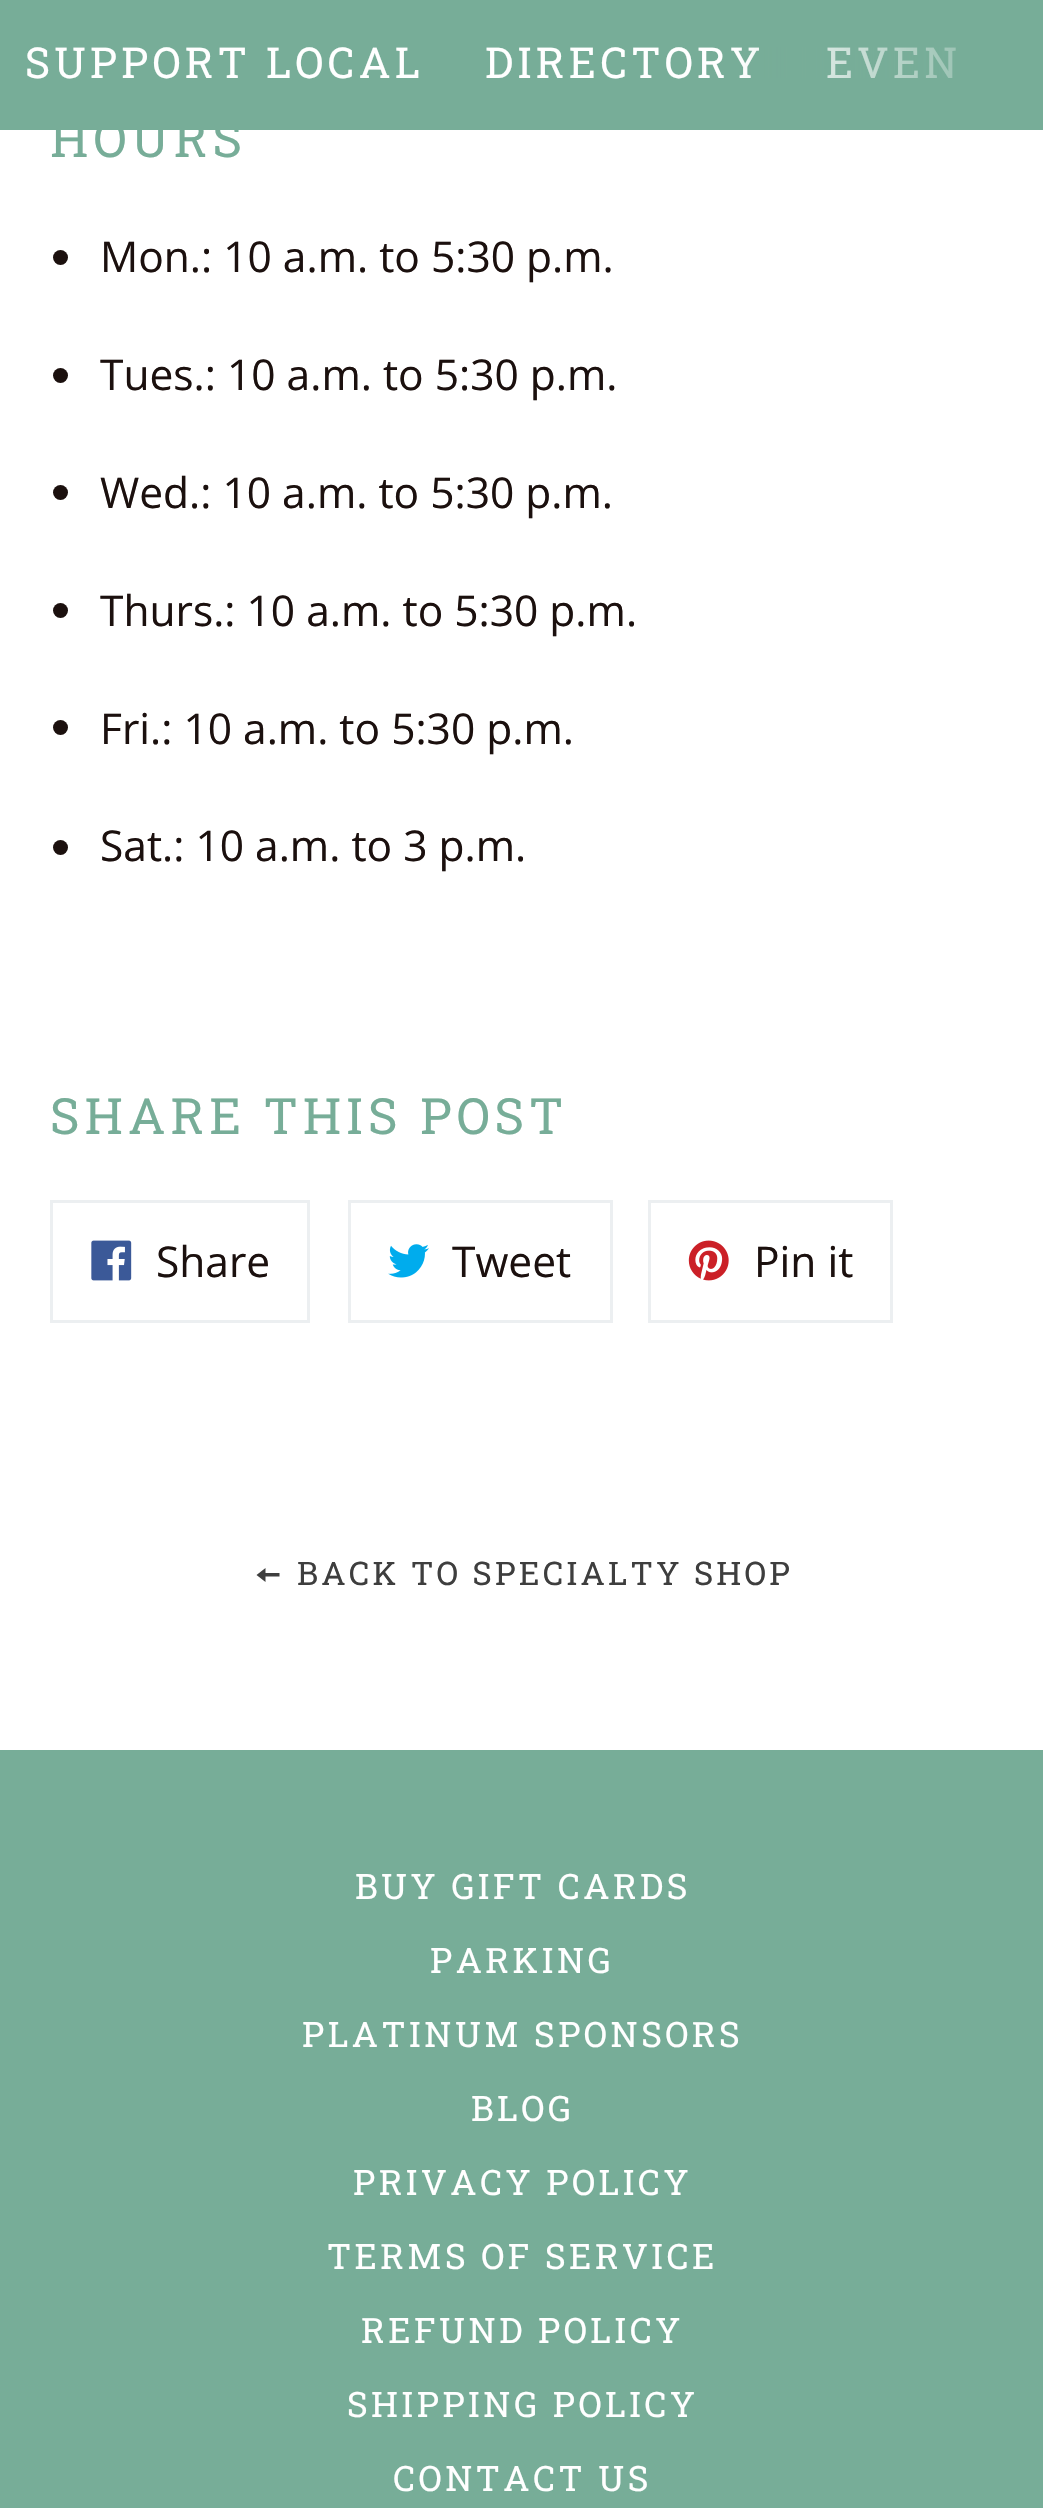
#include "include/core/SkBlurTypes.h"
#include "include/core/SkCanvas.h"
#include "include/core/SkData.h"
#include "include/core/SkFont.h"
#include "include/core/SkFontMgr.h"
#include "include/core/SkImage.h"
#include "include/core/SkMaskFilter.h"
#include "include/core/SkPaint.h"
#include "include/core/SkPathBuilder.h"
#include "include/core/SkTextBlob.h"
#include "include/effects/SkDashPathEffect.h"
#include "include/effects/SkGradientShader.h"
#include "include/utils/SkParsePath.h"

extern sk_sp<SkFontMgr> fontMgr;

void draw(SkCanvas* canvas) {
  SkPaint p;
  p.setAntiAlias(true);
  auto spacedText = [&](const char* s, float x, float y, const SkFont& font, const SkPaint& ink, float letter, float word) {
    std::vector<SkGlyphID> glyphs(font.countText(s, strlen(s), SkTextEncoding::kUTF8));
    std::vector<float> xs(glyphs.size());
    font.textToGlyphs(s, strlen(s), SkTextEncoding::kUTF8, glyphs);
    font.getXPos(glyphs, xs, x);
    float extra = 0;
    for (size_t i = 0; i < glyphs.size(); i++) {
      xs[i] += extra;
      extra += letter + word * (glyphs[i] == font.unicharToGlyph(' '));
    }
    canvas->drawTextBlob(SkTextBlob::MakeFromPosHGlyphs(glyphs, xs, y, font), 0, 0, ink);
  };
  canvas->clear(SK_ColorWHITE);
  p.setColor(SkColorSetRGB(119, 173, 152));
  canvas->drawRect(SkRect::MakeLTRB(0, 0, 1043, 130), p);
  p.setColor(SkColorSetRGB(27, 16, 14));
  canvas->drawCircle(60.5f, 257.5f, 7.5f, p);
  canvas->drawCircle(60.5f, 375.5f, 7.5f, p);
  canvas->drawCircle(60.5f, 492.5f, 7.5f, p);
  canvas->drawCircle(60.5f, 610.5f, 7.5f, p);
  canvas->drawCircle(60.5f, 727.5f, 7.5f, p);
  canvas->drawCircle(60.5f, 847.5f, 7.5f, p);
  p.setStyle(SkPaint::kStroke_Style);
  p.setStrokeWidth(3);
  p.setColor(SkColorSetRGB(236, 239, 241));
  canvas->drawRect(SkRect::MakeLTRB(51.5f, 1201.5f, 308.5f, 1321.5f), p);
  canvas->drawImageRect(SkImages::DeferredFromEncodedData(SkData::MakeFromFileName("images/1.png")), SkRect::MakeLTRB(91, 1240, 132, 1281), SkSamplingOptions());
  canvas->drawRect(SkRect::MakeLTRB(349.5f, 1201.5f, 611.5f, 1321.5f), p);
  canvas->drawImageRect(SkImages::DeferredFromEncodedData(SkData::MakeFromFileName("images/2.png")), SkRect::MakeLTRB(388, 1244, 429, 1278), SkSamplingOptions());
  canvas->drawRect(SkRect::MakeLTRB(649.5f, 1201.5f, 891.5f, 1321.5f), p);
  canvas->drawImageRect(SkImages::DeferredFromEncodedData(SkData::MakeFromFileName("images/3.png")), SkRect::MakeLTRB(688, 1240, 729, 1281), SkSamplingOptions());
  p.setStyle(SkPaint::kFill_Style);
  p.setColor(SkColorSetRGB(62, 62, 62));
  canvas->drawPath(SkPathBuilder().moveTo(265.5f, 1573).lineTo(265.5f, 1568).lineTo(256.5f, 1575).lineTo(265.5f, 1582).lineTo(265.5f, 1576.5f).lineTo(279.5f, 1576.5f).lineTo(279.5f, 1573).close().detach(), p);
  p.setColor(SkColorSetRGB(119, 173, 152));
  canvas->drawRect(SkRect::MakeLTRB(0, 1750, 1043, 2508), p);
  SkFont font1(fontMgr->matchFamilyStyle("Roboto Slab", SkFontStyle::Normal()), 42.5f);
  font1.setSubpixel(true);
  p.setColor(SK_ColorWHITE);
  spacedText("SUPPORT LOCAL", 25, 78, font1, p, 4.25f, 0);
  spacedText("DIRECTORY", 485, 78, font1, p, 4.25f, 0);
  spacedText("EVEN", 826, 78, font1, p, 4.25f, 0);
  {
    const SkColor colors[] = {SkColorSetARGB(0, 119, 173, 152), SkColorSetRGB(119, 173, 152)};
    const float stops[] = {0, 1};
    const SkPoint ends[] = {{733, 65}, {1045, 65}};
    p.setShader(SkGradientShader::MakeLinear(ends, colors, stops, 2, SkTileMode::kClamp));
    p.setAlpha(255);
  }
  canvas->drawRect(SkRect::MakeLTRB(740, 47, 956, 78), p);
  SkFont font2(fontMgr->matchFamilyStyle("Roboto Slab", SkFontStyle::Normal()), 50);
  font2.setSubpixel(true);
  p.setShader(nullptr);
  p.setColor(SkColorSetRGB(119, 173, 152));
  spacedText("HOURS", 50, 157, font2, p, 5, 0);
  SkFont font3(fontMgr->matchFamilyStyle("Open Sans", SkFontStyle::Normal()), 42.5f);
  font3.setSubpixel(true);
  p.setColor(SkColorSetRGB(27, 16, 14));
  canvas->drawString("Mon.: 10 a.m. to 5:30 p.m.", 100, 272, font3, p);
  canvas->drawString("Tues.: 10 a.m. to 5:30 p.m.", 100, 390, font3, p);
  canvas->drawString("Wed.: 10 a.m. to 5:30 p.m.", 100, 508, font3, p);
  canvas->drawString("Thurs.: 10 a.m. to 5:30 p.m.", 100, 626, font3, p);
  canvas->drawString("Fri.: 10 a.m. to 5:30 p.m.", 100, 744, font3, p);
  canvas->drawString("Sat.: 10 a.m. to 3 p.m.", 100, 861, font3, p);
  p.setColor(SkColorSetRGB(119, 173, 152));
  spacedText("SHARE THIS POST", 50, 1134, font2, p, 5, 0);
  p.setColor(SkColorSetRGB(27, 16, 14));
  canvas->drawString("Share", 156, 1277, font3, p);
  canvas->drawString("Tweet", 452, 1277, font3, p);
  canvas->drawString("Pin it", 754, 1277, font3, p);
  SkFont font4(fontMgr->matchFamilyStyle("Roboto Slab", SkFontStyle::Normal()), 32.5f);
  font4.setSubpixel(true);
  p.setColor(SkColorSetRGB(62, 62, 62));
  spacedText("BACK TO SPECIALTY SHOP", 297, 1585, font4, p, 3.25f, 0);
  SkFont font5(fontMgr->matchFamilyStyle("Roboto Slab", SkFontStyle::Normal()), 35);
  font5.setSubpixel(true);
  p.setColor(SK_ColorWHITE);
  spacedText("BUY GIFT CARDS", 355, 1899, font5, p, 3.5f, 0);
  spacedText("PARKING", 430, 1973, font5, p, 3.5f, 0);
  spacedText("PLATINUM SPONSORS", 302, 2047, font5, p, 3.5f, 0);
  spacedText("BLOG", 471, 2121, font5, p, 3.5f, 0);
  spacedText("PRIVACY POLICY", 353, 2195, font5, p, 3.5f, 0);
  spacedText("TERMS OF SERVICE", 327, 2269, font5, p, 3.5f, 0);
  spacedText("REFUND POLICY", 361, 2343, font5, p, 3.5f, 0);
  spacedText("SHIPPING POLICY", 347, 2417, font5, p, 3.5f, 0);
  spacedText("CONTACT US", 393, 2491, font5, p, 3.5f, 0);
}
